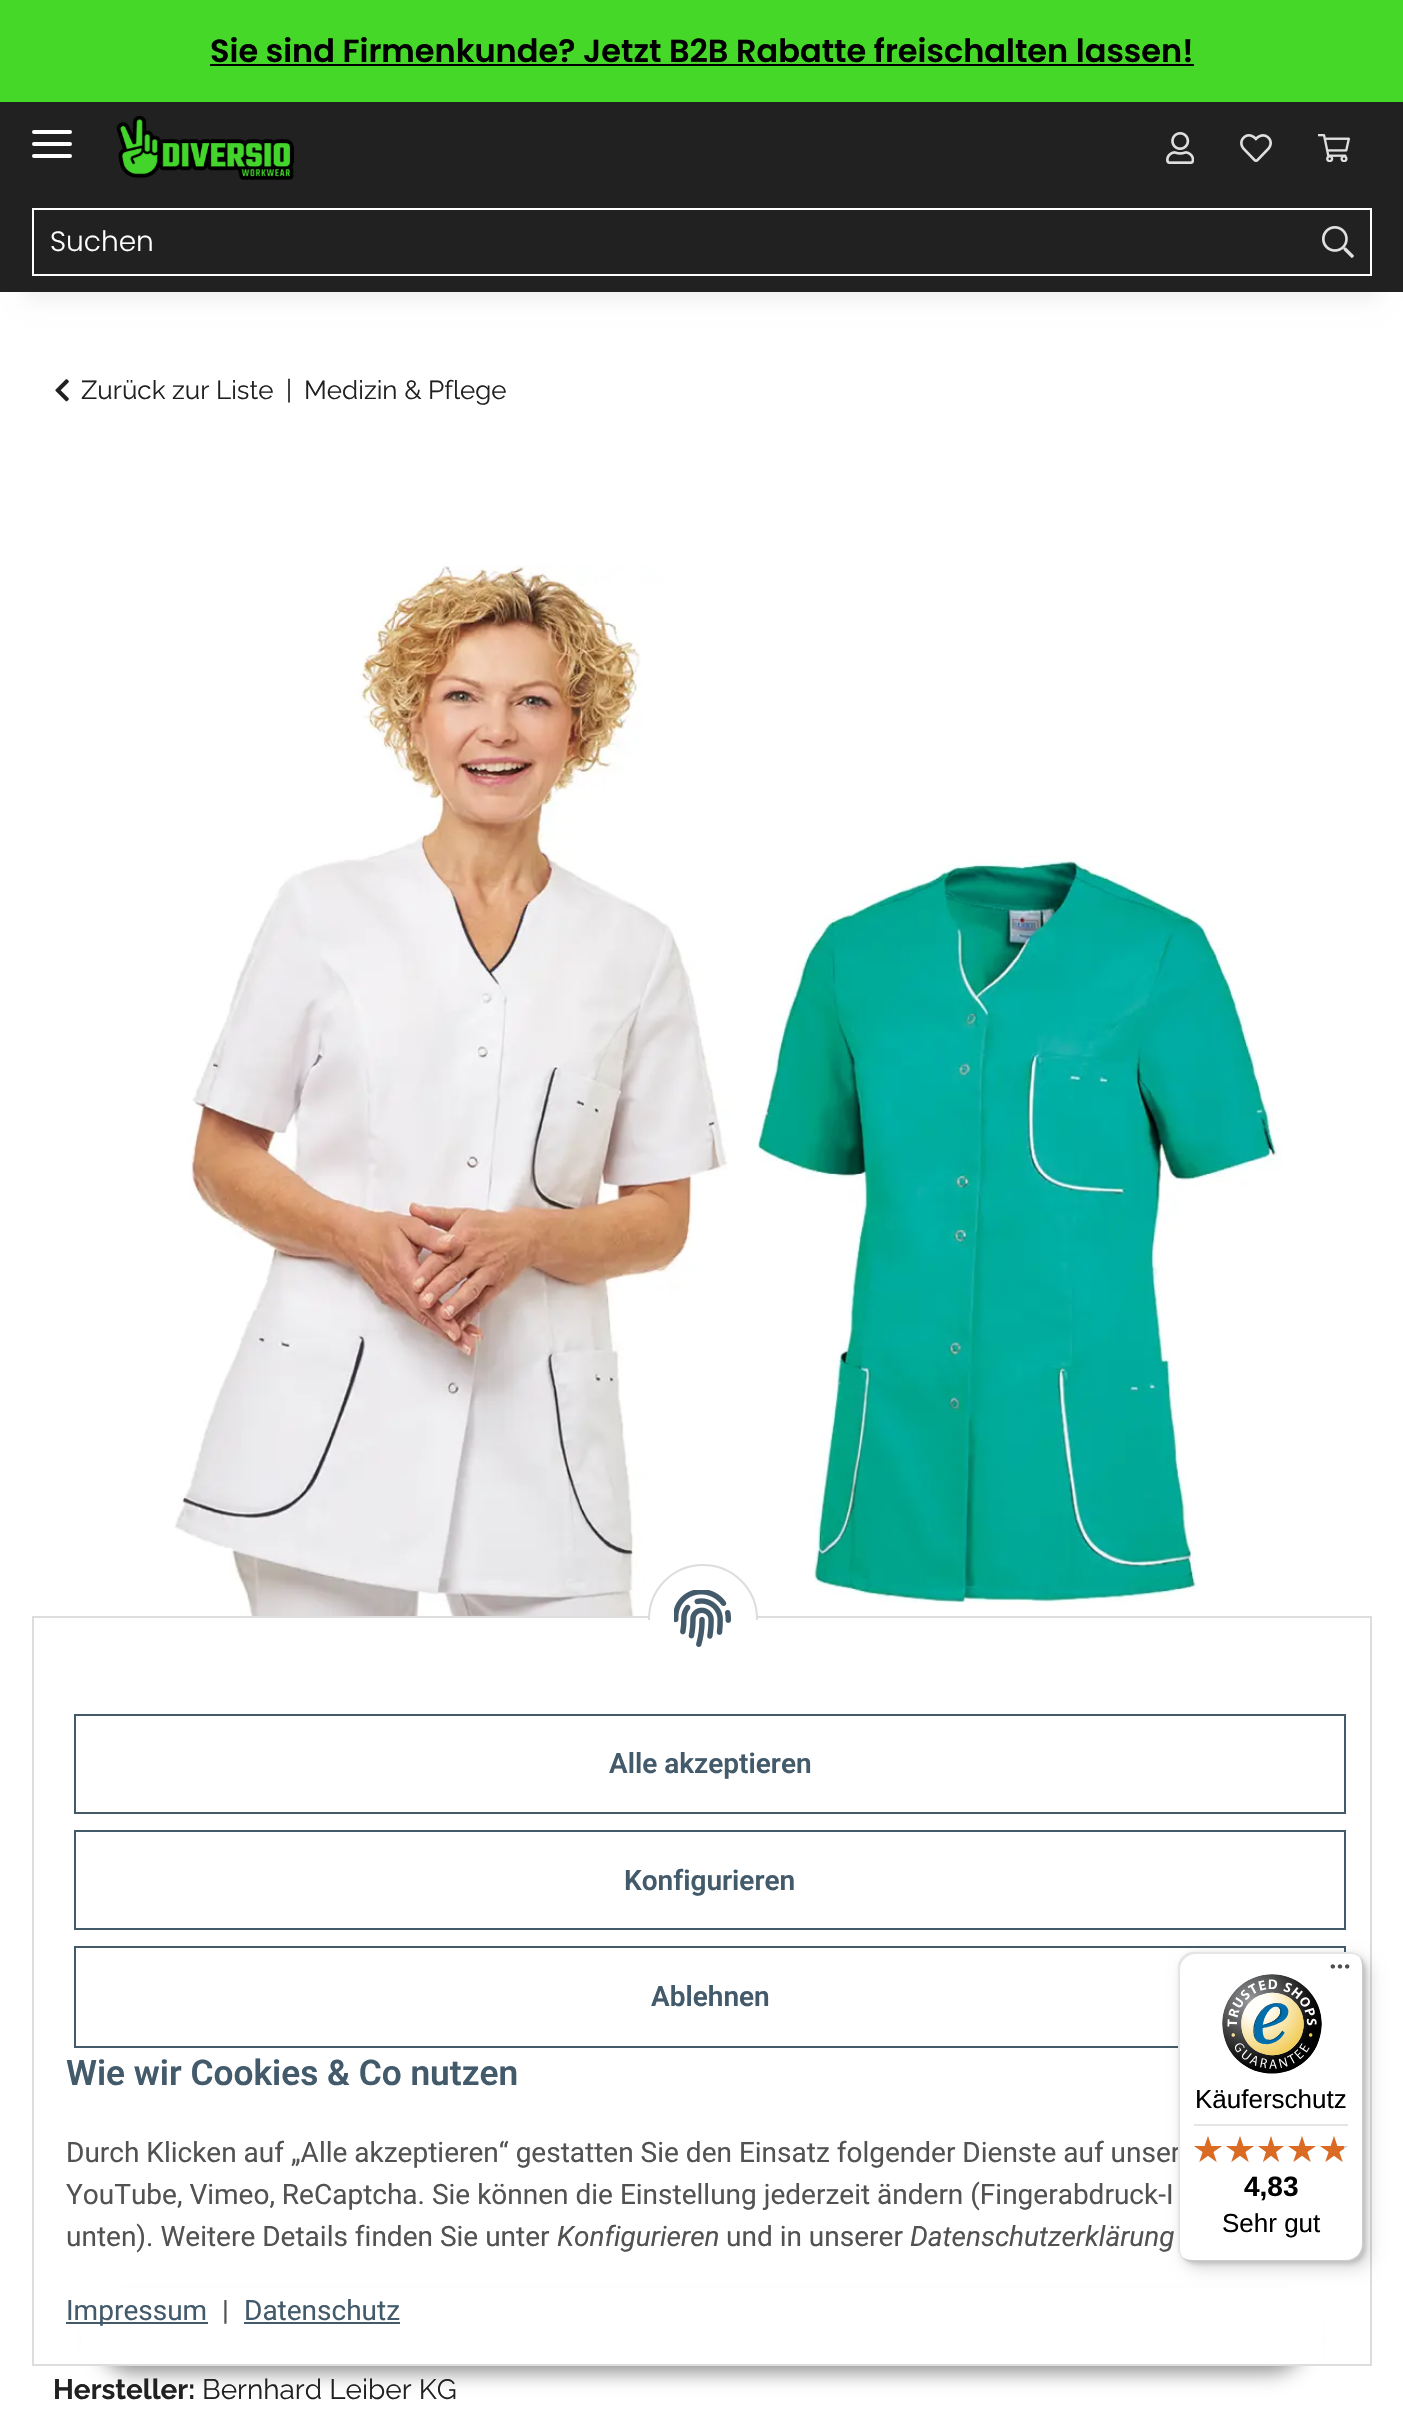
#include "include/core/SkBlurTypes.h"
#include "include/core/SkCanvas.h"
#include "include/core/SkData.h"
#include "include/core/SkFont.h"
#include "include/core/SkFontMgr.h"
#include "include/core/SkImage.h"
#include "include/core/SkMaskFilter.h"
#include "include/core/SkPaint.h"
#include "include/core/SkPathBuilder.h"
#include "include/core/SkTextBlob.h"
#include "include/effects/SkDashPathEffect.h"
#include "include/effects/SkGradientShader.h"
#include "include/utils/SkParsePath.h"

extern sk_sp<SkFontMgr> fontMgr;

void draw(SkCanvas* canvas) {
  SkPaint p;
  p.setAntiAlias(true);
  canvas->clear(SkColorSetRGB(69, 216, 40));
  p.setColor(SK_ColorBLACK);
  canvas->drawRect(SkRect::MakeLTRB(210, 64, 1194, 66), p);
  p.setColor(SK_ColorWHITE);
  canvas->drawRect(SkRect::MakeLTRB(0, 292, 1403, 2429), p);
  p.setColor(SkColorSetARGB(15, 0, 0, 0));
  p.setMaskFilter(SkMaskFilter::MakeBlur(kNormal_SkBlurStyle, 9));
  canvas->drawRect(SkRect::MakeLTRB(24, 158, 1380, 300), p);
  p.setMaskFilter(nullptr);
  p.setColor(SkColorSetRGB(33, 33, 33));
  canvas->drawRect(SkRect::MakeLTRB(0, 102, 1403, 292), p);
  p.setColor(SK_ColorWHITE);
  canvas->drawRoundRect(SkRect::MakeLTRB(32, 142, 72, 146), 2, 2, p);
  canvas->drawRoundRect(SkRect::MakeLTRB(32, 130, 72, 134), 2, 2, p);
  canvas->drawRoundRect(SkRect::MakeLTRB(32, 154, 72, 158), 2, 2, p);
  canvas->drawImageRect(SkImages::DeferredFromEncodedData(SkData::MakeFromFileName("images/1.png")), SkRect::MakeLTRB(116, 116, 294, 180), SkSamplingOptions());
  canvas->drawImageRect(SkImages::DeferredFromEncodedData(SkData::MakeFromFileName("images/2.png")), SkRect::MakeLTRB(1166, 132, 1194, 164), SkSamplingOptions());
  canvas->drawImageRect(SkImages::DeferredFromEncodedData(SkData::MakeFromFileName("images/3.png")), SkRect::MakeLTRB(1240, 134, 1272, 162), SkSamplingOptions());
  canvas->drawImageRect(SkImages::DeferredFromEncodedData(SkData::MakeFromFileName("images/4.png")), SkRect::MakeLTRB(1318, 134, 1350, 162), SkSamplingOptions());
  p.setStyle(SkPaint::kStroke_Style);
  p.setStrokeWidth(2);
  canvas->drawRect(SkRect::MakeLTRB(33, 209, 1307, 275), p);
  p.setStyle(SkPaint::kFill_Style);
  p.setColor(SkColorSetRGB(33, 33, 33));
  canvas->drawRect(SkRect::MakeLTRB(1306, 210, 1308, 274), p);
  p.setColor(SK_ColorWHITE);
  canvas->drawRect(SkRect::MakeLTRB(1306, 208, 1372, 210), p);
  canvas->drawRect(SkRect::MakeLTRB(1370, 208, 1372, 276), p);
  canvas->drawRect(SkRect::MakeLTRB(1306, 274, 1372, 276), p);
  canvas->drawImageRect(SkImages::DeferredFromEncodedData(SkData::MakeFromFileName("images/5.png")), SkRect::MakeLTRB(1322, 226, 1354, 258), SkSamplingOptions());
  canvas->drawImageRect(SkImages::DeferredFromEncodedData(SkData::MakeFromFileName("images/6.png")), SkRect::MakeLTRB(55, 379, 69, 402), SkSamplingOptions());
  canvas->drawImageRect(SkImages::DeferredFromEncodedData(SkData::MakeFromFileName("images/7.png")), SkRect::MakeLTRB(174, 565, 1282, 1616), SkSamplingOptions());
  p.setColor(SkColorSetARGB(115, 0, 0, 0));
  p.setMaskFilter(SkMaskFilter::MakeBlur(kNormal_SkBlurStyle, 10));
  canvas->drawRoundRect(SkRect::MakeLTRB(100, 2308, 1304, 2372), 32, 32, p);
  p.setMaskFilter(nullptr);
  p.setColor(SK_ColorWHITE);
  canvas->drawRect(SkRect::MakeLTRB(81, 2288, 1323, 2364), p);
  p.setStyle(SkPaint::kStroke_Style);
  p.setColor(SkColorSetRGB(221, 221, 221));
  canvas->drawRect(SkRect::MakeLTRB(33, 1617, 1371, 2365), p);
  p.setStyle(SkPaint::kFill_Style);
  p.setColor(SK_ColorWHITE);
  canvas->drawCircle(703, 1619, 54, p);
  p.setStyle(SkPaint::kStroke_Style);
  p.setColor(SkColorSetRGB(221, 221, 221));
  canvas->drawCircle(703, 1619, 54, p);
  p.setStyle(SkPaint::kFill_Style);
  p.setColor(SK_ColorWHITE);
  canvas->drawRect(SkRect::MakeLTRB(648, 1620, 758, 1674), p);
  canvas->drawImageRect(SkImages::DeferredFromEncodedData(SkData::MakeFromFileName("images/8.png")), SkRect::MakeLTRB(674, 1590, 731, 1647), SkSamplingOptions());
  p.setStyle(SkPaint::kStroke_Style);
  p.setColor(SkColorSetRGB(67, 90, 107));
  canvas->drawRect(SkRect::MakeLTRB(75, 1715, 1345, 1813), p);
  canvas->drawRect(SkRect::MakeLTRB(75, 1831, 1345, 1929), p);
  canvas->drawRect(SkRect::MakeLTRB(75, 1947, 1345, 2047), p);
  p.setStyle(SkPaint::kFill_Style);
  canvas->drawRect(SkRect::MakeLTRB(66, 2322, 208, 2324), p);
  canvas->drawRect(SkRect::MakeLTRB(244, 2322, 400, 2324), p);
  p.setColor(SkColorSetARGB(38, 0, 0, 0));
  p.setMaskFilter(SkMaskFilter::MakeBlur(kNormal_SkBlurStyle, 8));
  canvas->drawRoundRect(SkRect::MakeLTRB(1184, 1958, 1370, 2268), 16, 16, p);
  p.setMaskFilter(nullptr);
  p.setMaskFilter(SkMaskFilter::MakeBlur(kNormal_SkBlurStyle, 2));
  canvas->drawRoundRect(SkRect::MakeLTRB(1180, 1954, 1366, 2264), 16, 16, p);
  p.setMaskFilter(nullptr);
  SkFont font1(fontMgr->matchFamilyStyle("Poppins", SkFontStyle(600, SkFontStyle::kNormal_Width, SkFontStyle::kUpright_Slant)), 32);
  font1.setSubpixel(true);
  p.setColor(SK_ColorBLACK);
  canvas->drawString("Sie sind Firmenkunde? Jetzt B2B Rabatte freischalten lassen!", 210, 62, font1, p);
  SkFont font2(fontMgr->matchFamilyStyle("Poppins", SkFontStyle(300, SkFontStyle::kNormal_Width, SkFontStyle::kUpright_Slant)), 28);
  font2.setSubpixel(true);
  p.setColor(SK_ColorWHITE);
  canvas->drawString("Suchen", 50, 251, font2, p);
  SkFont font3(fontMgr->matchFamilyStyle("Raleway", SkFontStyle::Normal()), 26);
  font3.setSubpixel(true);
  p.setColor(SkColorSetRGB(33, 33, 33));
  canvas->drawString("Zurück zur Liste", 81, 399, font3, p);
  canvas->drawString("|", 286, 399, font3, p);
  canvas->drawString("Medizin & Pflege", 304, 399, font3, p);
  SkFont font4(fontMgr->matchFamilyStyle("Raleway", SkFontStyle::Bold()), 28);
  font4.setSubpixel(true);
  canvas->drawString("Hersteller:", 53, 2399, font4, p);
  SkFont font5(fontMgr->matchFamilyStyle("Raleway", SkFontStyle::Normal()), 28);
  font5.setSubpixel(true);
  canvas->drawString("Bernhard Leiber KG", 202, 2399, font5, p);
  SkFont font6(fontMgr->matchFamilyStyle("Roboto", SkFontStyle(600, SkFontStyle::kNormal_Width, SkFontStyle::kUpright_Slant)), 28);
  font6.setSubpixel(true);
  p.setColor(SkColorSetRGB(67, 90, 107));
  canvas->drawString("Alle akzeptieren", 609, 1773, font6, p);
  canvas->drawString("Konfigurieren", 624, 1890, font6, p);
  canvas->drawString("Ablehnen", 651, 2006, font6, p);
  SkFont font7(fontMgr->matchFamilyStyle("Roboto", SkFontStyle(600, SkFontStyle::kNormal_Width, SkFontStyle::kUpright_Slant)), 35.25f);
  font7.setSubpixel(true);
  canvas->drawString("Wie wir Cookies & Co nutzen", 66, 2085, font7, p);
  SkFont font8(fontMgr->matchFamilyStyle("Roboto", SkFontStyle::Normal()), 28);
  font8.setSubpixel(true);
  p.setColor(SkColorSetRGB(82, 82, 82));
  canvas->drawString("Durch Klicken auf „Alle akzeptieren“ gestatten Sie den Einsatz folgender Dienste auf unser", 66, 2162, font8, p);
  canvas->drawString("YouTube, Vimeo, ReCaptcha. Sie können die Einstellung jederzeit ändern (Fingerabdruck-I", 66, 2204, font8, p);
  canvas->drawString("unten). Weitere Details finden Sie unter", 66, 2246, font8, p);
  SkFont font9(fontMgr->matchFamilyStyle("Roboto", SkFontStyle::Italic()), 28);
  font9.setSubpixel(true);
  canvas->drawString("Konfigurieren", 557, 2246, font9, p);
  canvas->drawString("und in unserer", 726, 2246, font8, p);
  canvas->drawString("Datenschutzerklärung", 910, 2246, font9, p);
  p.setColor(SkColorSetRGB(67, 90, 107));
  canvas->drawString("Impressum", 66, 2320, font8, p);
  p.setColor(SkColorSetRGB(82, 82, 82));
  canvas->drawString("|", 222, 2320, font8, p);
  p.setColor(SkColorSetRGB(67, 90, 107));
  canvas->drawString("Datenschutz", 244, 2320, font8, p);
  p.setColor(SK_ColorWHITE);
  canvas->drawRoundRect(SkRect::MakeLTRB(1178, 1952, 1364, 2262), 16, 16, p);
  p.setColor(SkColorSetARGB(26, 0, 0, 0));
  canvas->drawPath(SkPathBuilder().moveTo(1196, 1954).lineTo(1350, 1954).cubicTo(1354, 1954, 1357, 1955, 1360, 1957).cubicTo(1357, 1954, 1353, 1952, 1348, 1952).lineTo(1194, 1952).cubicTo(1185, 1952, 1178, 1959, 1178, 1968).lineTo(1178, 2246).cubicTo(1178, 2251, 1180, 2255, 1183, 2258).cubicTo(1181, 2255, 1180, 2252, 1180, 2248).lineTo(1180, 1970).cubicTo(1180, 1961, 1187, 1954, 1196, 1954).close().detach(), p);
  p.setColor(SkColorSetARGB(51, 0, 0, 0));
  canvas->drawPath(SkPathBuilder().moveTo(1182, 2257).cubicTo(1185, 2260, 1189, 2262, 1194, 2262).lineTo(1348, 2262).cubicTo(1357, 2262, 1364, 2255, 1364, 2246).lineTo(1364, 1968).cubicTo(1364, 1963, 1362, 1959, 1359, 1956).cubicTo(1361, 1959, 1362, 1962, 1362, 1966).lineTo(1362, 2244).cubicTo(1362, 2253, 1355, 2260, 1346, 2260).lineTo(1192, 2260).cubicTo(1188, 2260, 1185, 2259, 1182, 2257).close().detach(), p);
  p.setColor(SkColorSetARGB(51, 50, 50, 50));
  canvas->drawPath(SkPathBuilder().moveTo(1183, 2257).cubicTo(1186, 2260, 1190, 2262, 1194, 2262).lineTo(1348, 2262).cubicTo(1357, 2262, 1364, 2255, 1364, 2246).lineTo(1364, 1968).cubicTo(1364, 1964, 1362, 1960, 1359, 1957).cubicTo(1362, 1960, 1363, 1963, 1363, 1967).lineTo(1363, 2245).cubicTo(1363, 2254, 1356, 2261, 1347, 2261).lineTo(1193, 2261).cubicTo(1189, 2261, 1186, 2260, 1183, 2257).close().detach(), p);
  p.setColor(SkColorSetARGB(77, 255, 255, 255));
  canvas->drawPath(SkPathBuilder().moveTo(1183, 2257).cubicTo(1186, 2260, 1190, 2262, 1194, 2262).lineTo(1348, 2262).cubicTo(1357, 2262, 1364, 2255, 1364, 2246).lineTo(1364, 1968).cubicTo(1364, 1964, 1362, 1960, 1359, 1957).cubicTo(1362, 1960, 1363, 1963, 1363, 1967).lineTo(1363, 2245).cubicTo(1363, 2254, 1356, 2261, 1347, 2261).lineTo(1193, 2261).cubicTo(1189, 2261, 1186, 2260, 1183, 2257).close().detach(), p);
  canvas->drawImageRect(SkImages::DeferredFromEncodedData(SkData::MakeFromFileName("images/9.png")), SkRect::MakeLTRB(1330, 1964, 1350, 1969), SkSamplingOptions());
  canvas->drawImageRect(SkImages::DeferredFromEncodedData(SkData::MakeFromFileName("images/10.png")), SkRect::MakeLTRB(1222, 1974, 1322, 2074), SkSamplingOptions());
  SkFont font10(fontMgr->matchFamilyStyle("Liberation Sans", SkFontStyle::Normal()), 26);
  font10.setSubpixel(true);
  p.setColor(SK_ColorBLACK);
  canvas->drawString("Käuferschutz", 1195, 2108, font10, p);
  p.setColor(SkColorSetRGB(229, 229, 229));
  canvas->drawRect(SkRect::MakeLTRB(1194, 2124, 1348, 2126), p);
  canvas->drawImageRect(SkImages::DeferredFromEncodedData(SkData::MakeFromFileName("images/11.png")), SkRect::MakeLTRB(1194, 2136, 1222, 2162), SkSamplingOptions());
  canvas->drawImageRect(SkImages::DeferredFromEncodedData(SkData::MakeFromFileName("images/11.png")), SkRect::MakeLTRB(1226, 2136, 1254, 2162), SkSamplingOptions());
  canvas->drawImageRect(SkImages::DeferredFromEncodedData(SkData::MakeFromFileName("images/12.png")), SkRect::MakeLTRB(1258, 2136, 1284, 2162), SkSamplingOptions());
  canvas->drawImageRect(SkImages::DeferredFromEncodedData(SkData::MakeFromFileName("images/11.png")), SkRect::MakeLTRB(1288, 2136, 1316, 2162), SkSamplingOptions());
  canvas->drawImageRect(SkImages::DeferredFromEncodedData(SkData::MakeFromFileName("images/11.png")), SkRect::MakeLTRB(1320, 2136, 1348, 2162), SkSamplingOptions());
  canvas->drawImageRect(SkImages::DeferredFromEncodedData(SkData::MakeFromFileName("images/13.png")), SkRect::MakeLTRB(1194, 2136, 1222, 2162), SkSamplingOptions());
  canvas->drawImageRect(SkImages::DeferredFromEncodedData(SkData::MakeFromFileName("images/13.png")), SkRect::MakeLTRB(1226, 2136, 1254, 2162), SkSamplingOptions());
  canvas->drawImageRect(SkImages::DeferredFromEncodedData(SkData::MakeFromFileName("images/14.png")), SkRect::MakeLTRB(1258, 2136, 1284, 2162), SkSamplingOptions());
  canvas->drawImageRect(SkImages::DeferredFromEncodedData(SkData::MakeFromFileName("images/13.png")), SkRect::MakeLTRB(1288, 2136, 1316, 2162), SkSamplingOptions());
  canvas->drawImageRect(SkImages::DeferredFromEncodedData(SkData::MakeFromFileName("images/15.png")), SkRect::MakeLTRB(1320, 2136, 1344, 2162), SkSamplingOptions());
  SkFont font11(fontMgr->matchFamilyStyle("Liberation Sans", SkFontStyle::Bold()), 28);
  font11.setSubpixel(true);
  p.setColor(SK_ColorBLACK);
  canvas->drawString("4,83", 1244, 2196, font11, p);
  canvas->drawString("Sehr gut", 1222, 2232, font10, p);
}
